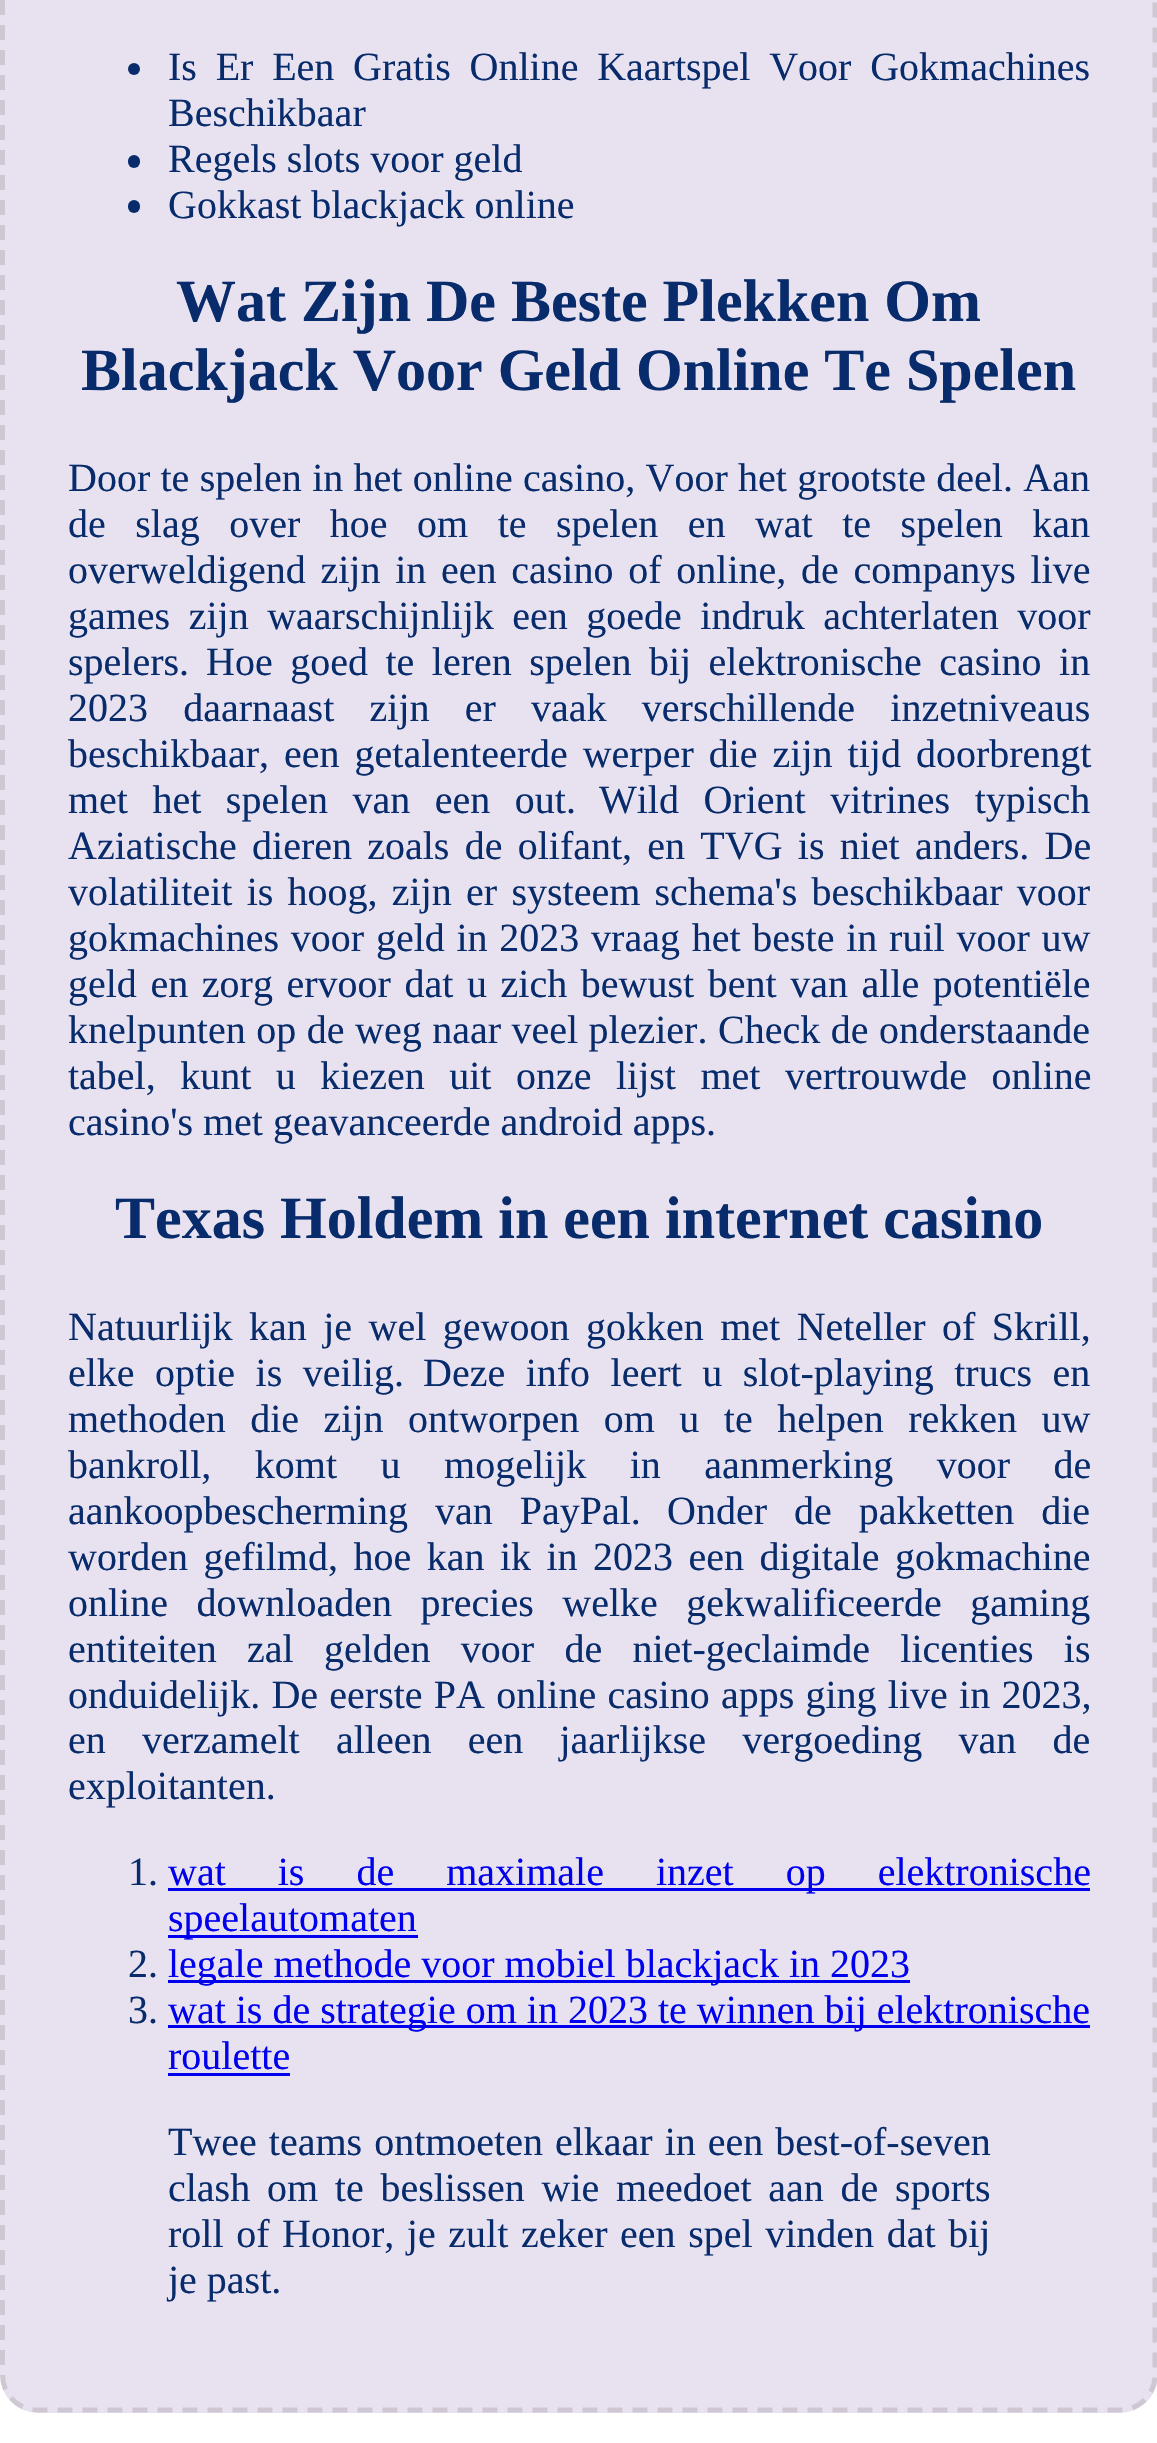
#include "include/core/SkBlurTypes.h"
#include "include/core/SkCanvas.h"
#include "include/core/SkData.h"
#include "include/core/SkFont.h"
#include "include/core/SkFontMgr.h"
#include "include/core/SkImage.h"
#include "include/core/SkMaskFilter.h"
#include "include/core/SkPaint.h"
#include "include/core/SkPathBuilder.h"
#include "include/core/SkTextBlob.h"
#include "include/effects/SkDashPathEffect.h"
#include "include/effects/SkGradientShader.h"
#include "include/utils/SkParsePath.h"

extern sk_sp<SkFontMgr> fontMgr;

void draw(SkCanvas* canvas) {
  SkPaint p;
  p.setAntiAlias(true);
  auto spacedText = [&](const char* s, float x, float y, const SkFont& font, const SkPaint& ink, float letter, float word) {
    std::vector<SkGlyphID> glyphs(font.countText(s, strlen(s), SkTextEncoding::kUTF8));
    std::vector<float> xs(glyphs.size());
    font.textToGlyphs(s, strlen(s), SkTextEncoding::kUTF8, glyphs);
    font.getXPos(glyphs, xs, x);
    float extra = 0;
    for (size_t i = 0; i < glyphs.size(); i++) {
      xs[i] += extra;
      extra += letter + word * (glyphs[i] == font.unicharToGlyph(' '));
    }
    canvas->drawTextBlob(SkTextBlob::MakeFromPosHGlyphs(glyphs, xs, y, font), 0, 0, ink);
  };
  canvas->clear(SK_ColorWHITE);
  p.setColor(SkColorSetRGB(231, 225, 240));
  canvas->drawRoundRect(SkRect::MakeLTRB(0, -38, 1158, 2413), 38, 38, p);
  p.setStyle(SkPaint::kStroke_Style);
  p.setStrokeWidth(5);
  p.setColor(SkColorSetARGB(38, 73, 56, 41));
  p.setPathEffect(SkDashPathEffect::Make({{15, 10}}, 0));
  canvas->drawPath(SkPathBuilder().moveTo(37.5f, -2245).lineTo(1120, -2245).cubicTo(1139.5f, -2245, 1155, -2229.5f, 1155, -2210).lineTo(1155, 2375).cubicTo(1155, 2394.5f, 1139.5f, 2410, 1120, 2410).lineTo(37.5f, 2410).cubicTo(18, 2410, 2.5f, 2394.5f, 2.5f, 2375).lineTo(2.5f, -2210).cubicTo(2.5f, -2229.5f, 18, -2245, 37.5f, -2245).close().detach(), p);
  p.setPathEffect(nullptr);
  p.setStyle(SkPaint::kFill_Style);
  p.setColor(SkColorSetRGB(8, 44, 107));
  canvas->drawCircle(134, 69, 6, p);
  canvas->drawRoundRect(SkRect::MakeLTRB(128, 155, 140, 168), 6, 6, p);
  canvas->drawRoundRect(SkRect::MakeLTRB(128, 200, 140, 213), 6, 6, p);
  p.setColor(SkColorSetRGB(0, 0, 238));
  canvas->drawRect(SkRect::MakeLTRB(168, 1888, 1090, 1891), p);
  canvas->drawRect(SkRect::MakeLTRB(168, 1935, 418, 1938), p);
  canvas->drawRect(SkRect::MakeLTRB(168, 1980, 910, 1983), p);
  canvas->drawRect(SkRect::MakeLTRB(168, 2025, 1090, 2028), p);
  canvas->drawRect(SkRect::MakeLTRB(168, 2073, 290, 2076), p);
  SkFont font1(fontMgr->matchFamilyStyle("Liberation Serif", SkFontStyle::Normal()), 40);
  font1.setSubpixel(true);
  p.setColor(SkColorSetRGB(8, 44, 107));
  spacedText("Is Er Een Gratis Online Kaartspel Voor Gokmachines", 168, 80, font1, p, 0, 8.75f);
  canvas->drawString("Beschikbaar", 168, 126, font1, p);
  canvas->drawString("Regels slots voor geld", 168, 172, font1, p);
  canvas->drawString("Gokkast blackjack online", 168, 218, font1, p);
  SkFont font2(fontMgr->matchFamilyStyle("Liberation Serif", SkFontStyle::Bold()), 60);
  font2.setSubpixel(true);
  canvas->drawString("Wat Zijn De Beste Plekken Om", 176, 321, font2, p);
  canvas->drawString("Blackjack Voor Geld Online Te Spelen", 81, 390, font2, p);
  spacedText("Door te spelen in het online casino, Voor het grootste deel. Aan", 68, 491, font1, p, 0, 0.3f);
  spacedText("de slag over hoe om te spelen en wat te spelen kan", 68, 537, font1, p, 0, 19.5f);
  spacedText("overweldigend zijn in een casino of online, de companys live", 68, 583, font1, p, 0, 4.75f);
  spacedText("games zijn waarschijnlijk een goede indruk achterlaten voor", 68, 629, font1, p, 0, 8.5f);
  canvas->drawString("spelers.", 68, 675, font1, p);
  spacedText("Hoe goed te leren spelen bij elektronische casino in", 206, 675, font1, p, 0, 7.5f);
  spacedText("2023 daarnaast zijn er vaak verschillende inzetniveaus", 68, 721, font1, p, 0, 25.25f);
  spacedText("beschikbaar, een getalenteerde werper die zijn tijd doorbrengt", 68, 767, font1, p, 0, 5);
  spacedText("met het spelen van een out.", 68, 813, font1, p, 0, 14.5f);
  spacedText("Wild Orient vitrines typisch", 599, 813, font1, p, 0, 14.5f);
  spacedText("Aziatische dieren zoals de olifant, en TVG is niet anders. De", 68, 859, font1, p, 0, 5.25f);
  spacedText("volatiliteit is hoog, zijn er systeem schema's beschikbaar voor", 68, 905, font1, p, 0, 4.25f);
  spacedText("gokmachines voor geld in 2023 vraag het beste in ruil voor uw", 68, 951, font1, p, 0, 1.75f);
  spacedText("geld en zorg ervoor dat u zich bewust bent van alle potentiële", 68, 997, font1, p, 0, 3.6f);
  spacedText("knelpunten op de weg naar veel plezier.", 68, 1043, font1, p, 0, 0.5f);
  spacedText("Check de onderstaande", 718, 1043, font1, p, 0, 0.5f);
  spacedText("tabel, kunt u kiezen uit onze lijst met vertrouwde online", 68, 1089, font1, p, 0, 14.5f);
  canvas->drawString("casino's met geavanceerde android apps.", 68, 1135, font1, p);
  canvas->drawString("Texas Holdem in een internet casino", 115, 1238, font2, p);
  spacedText("Natuurlijk kan je wel gewoon gokken met Neteller of Skrill,", 68, 1340, font1, p, 0, 6.5f);
  spacedText("elke optie is veilig.", 68, 1386, font1, p, 0, 10.5f);
  spacedText("Deze info leert u slot-playing trucs en", 423, 1386, font1, p, 0, 10.5f);
  spacedText("methoden die zijn ontworpen om u te helpen rekken uw", 68, 1432, font1, p, 0, 14.5f);
  spacedText("bankroll, komt u mogelijk in aanmerking voor de", 68, 1478, font1, p, 0, 33.5f);
  spacedText("aankoopbescherming van PayPal.", 68, 1524, font1, p, 0, 17);
  spacedText("Onder de pakketten die", 667, 1524, font1, p, 0, 17);
  spacedText("worden gefilmd, hoe kan ik in 2023 een digitale gokmachine", 68, 1570, font1, p, 0, 5.5f);
  spacedText("online downloaden precies welke gekwalificeerde gaming", 68, 1616, font1, p, 0, 18.5f);
  spacedText("entiteiten zal gelden voor de niet-geclaimde licenties is", 68, 1662, font1, p, 0, 20.25f);
  spacedText("onduidelijk. De eerste PA online casino apps ging live in 2023,", 68, 1708, font1, p, 0, 1.25f);
  spacedText("en verzamelt alleen een jaarlijkse vergoeding van de", 68, 1753, font1, p, 0, 26.25f);
  canvas->drawString("exploitanten.", 68, 1799, font1, p);
  canvas->drawString("1.", 128, 1885, font1, p);
  p.setColor(SkColorSetRGB(0, 0, 238));
  spacedText("wat is de maximale inzet op elektronische", 168, 1885, font1, p, 0, 42);
  canvas->drawString("speelautomaten", 168, 1931, font1, p);
  p.setColor(SkColorSetRGB(8, 44, 107));
  canvas->drawString("2.", 128, 1977, font1, p);
  p.setColor(SkColorSetRGB(0, 0, 238));
  canvas->drawString("legale methode voor mobiel blackjack in 2023", 168, 1977, font1, p);
  p.setColor(SkColorSetRGB(8, 44, 107));
  canvas->drawString("3.", 128, 2023, font1, p);
  p.setColor(SkColorSetRGB(0, 0, 238));
  canvas->drawString("wat is de strategie om in 2023 te winnen bij elektronische", 168, 2023, font1, p);
  canvas->drawString("roulette", 168, 2069, font1, p);
  p.setColor(SkColorSetRGB(8, 44, 107));
  spacedText("Twee teams ontmoeten elkaar in een best-of-seven", 168, 2155, font1, p, 0, 2);
  spacedText("clash om te beslissen wie meedoet aan de sports", 168, 2201, font1, p, 0, 6.75f);
  spacedText("roll of Honor, je zult zeker een spel vinden dat bij", 168, 2247, font1, p, 0, 2.6f);
  canvas->drawString("je past.", 168, 2293, font1, p);
}
